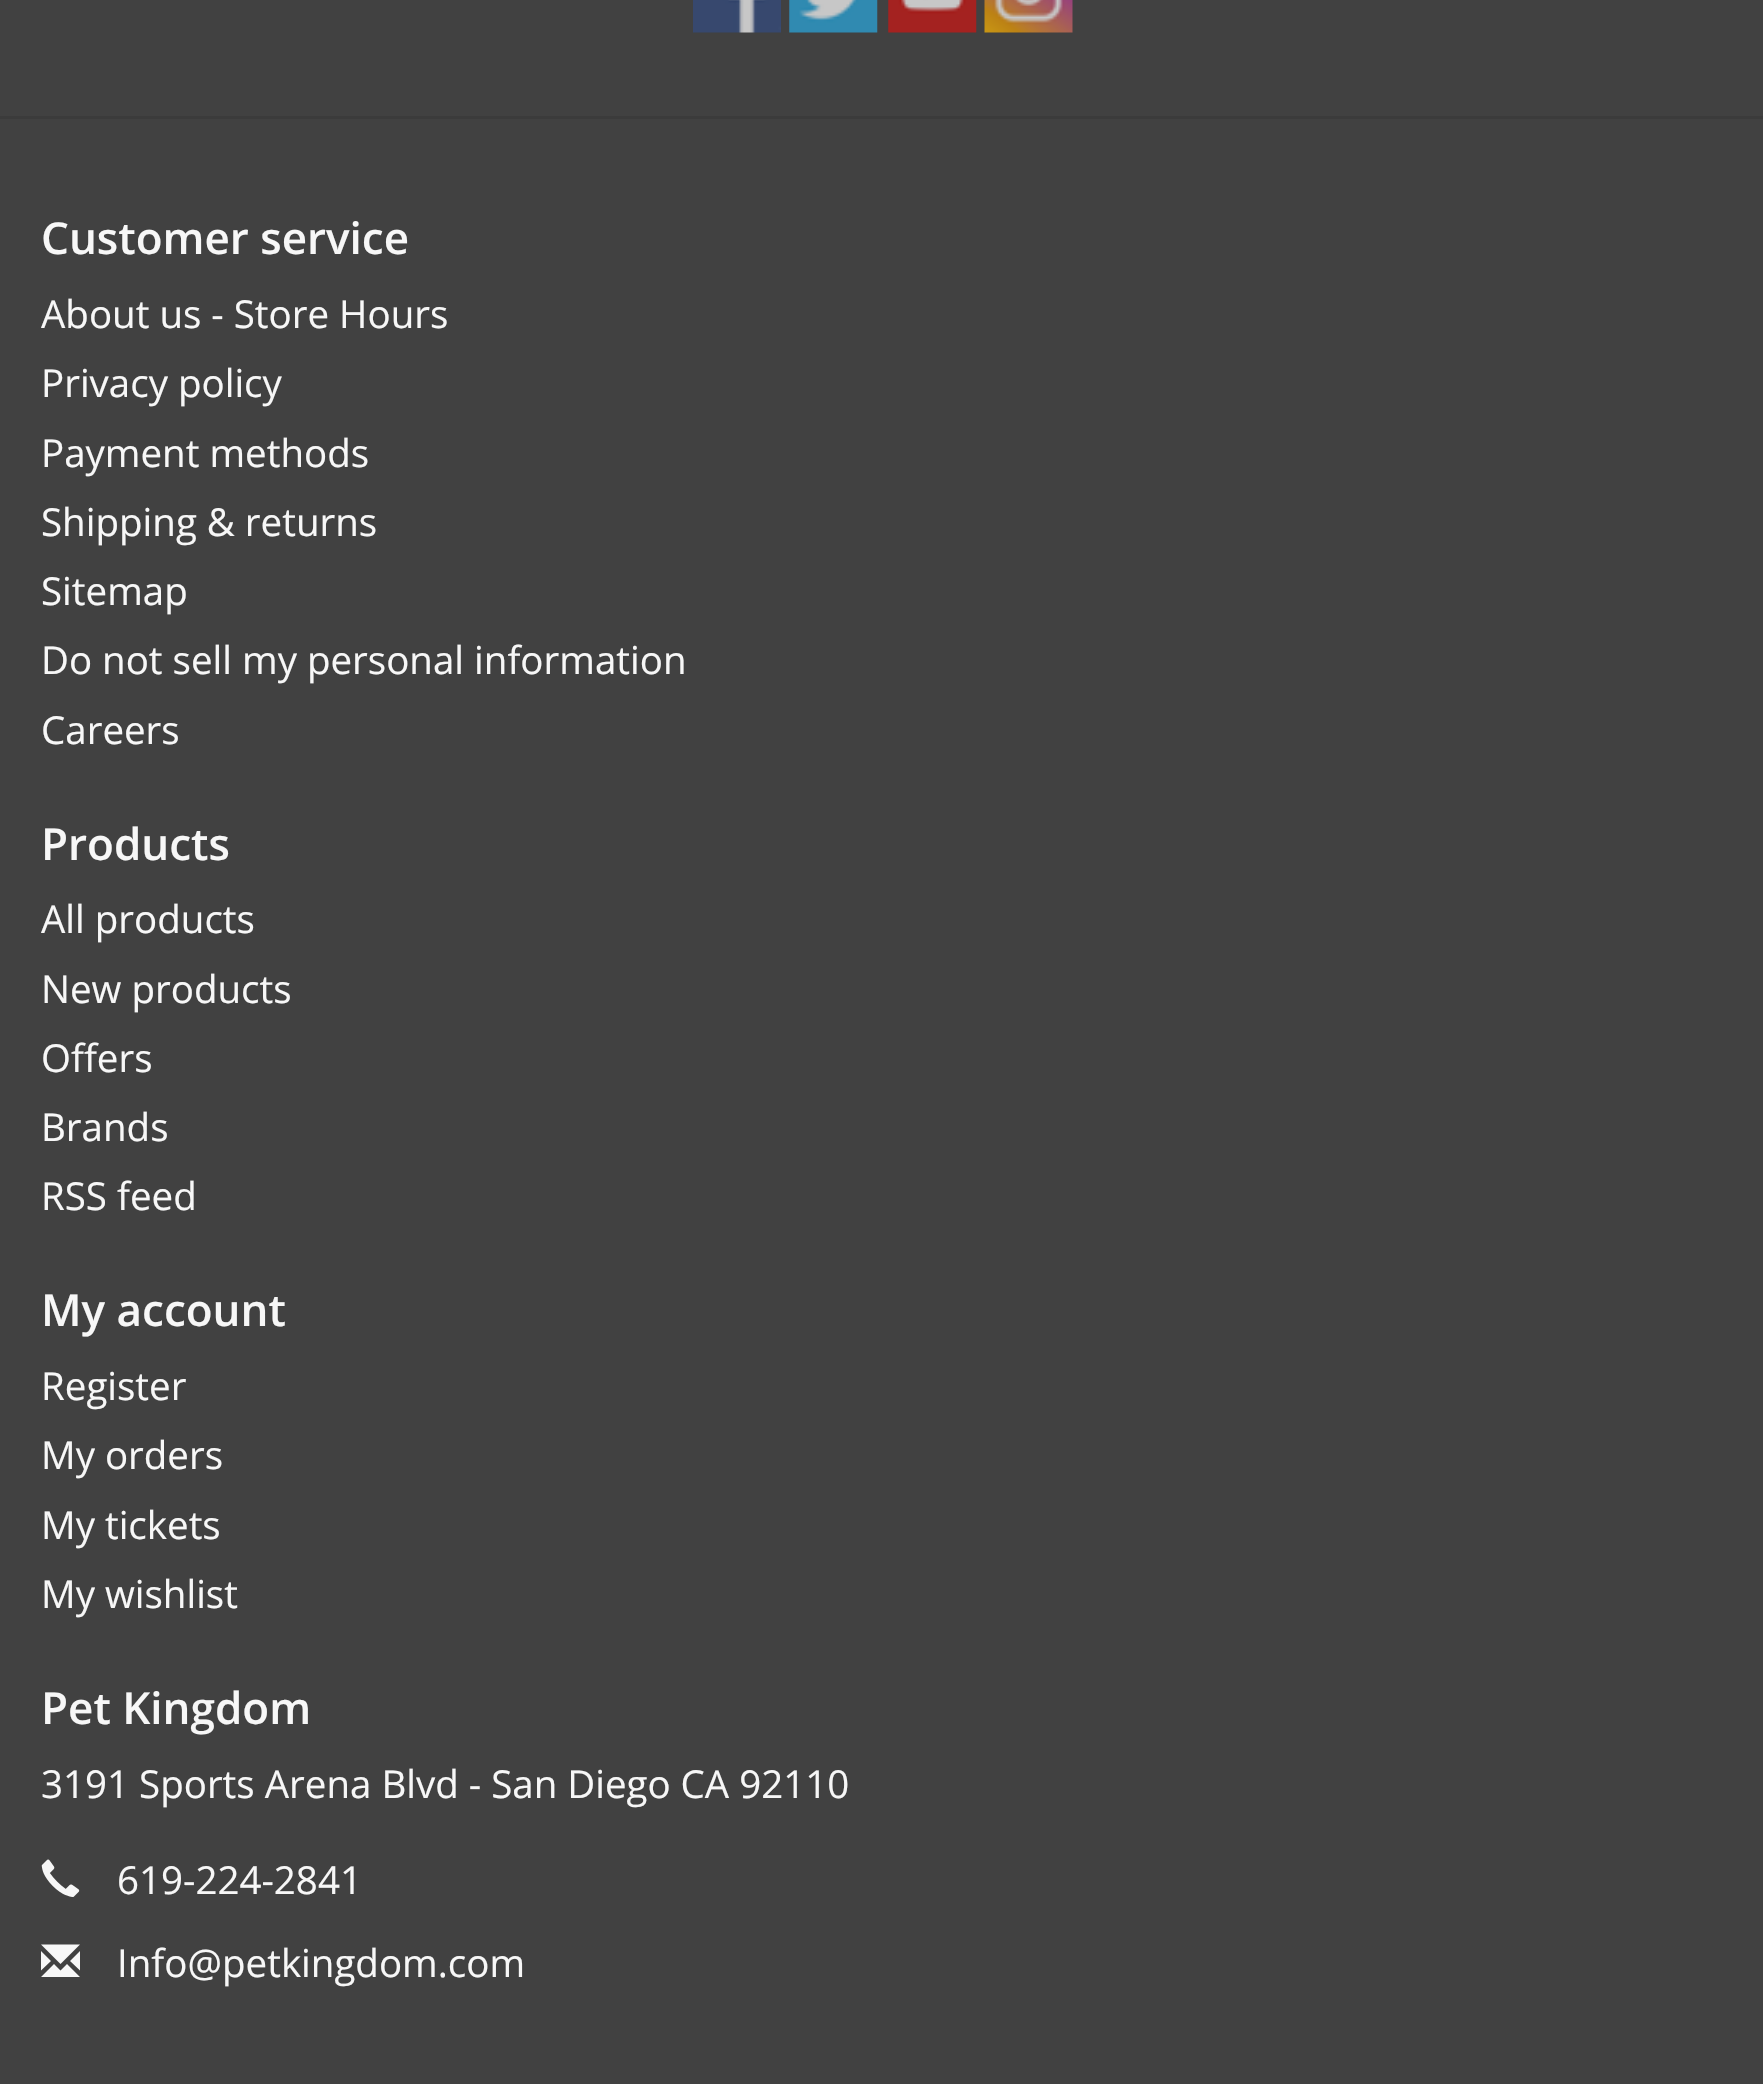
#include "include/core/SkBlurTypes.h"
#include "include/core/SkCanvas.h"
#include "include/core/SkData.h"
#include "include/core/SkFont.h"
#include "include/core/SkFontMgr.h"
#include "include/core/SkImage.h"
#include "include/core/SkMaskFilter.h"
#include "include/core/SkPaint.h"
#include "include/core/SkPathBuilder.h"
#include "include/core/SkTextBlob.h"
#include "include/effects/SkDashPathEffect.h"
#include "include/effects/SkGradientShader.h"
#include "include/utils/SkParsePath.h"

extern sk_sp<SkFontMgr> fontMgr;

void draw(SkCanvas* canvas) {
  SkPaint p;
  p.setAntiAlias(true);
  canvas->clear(SkColorSetRGB(65, 65, 65));
  canvas->drawImageRect(SkImages::DeferredFromEncodedData(SkData::MakeFromFileName("images/1.png")), SkRect::MakeLTRB(693, 0, 781, 33), SkSamplingOptions());
  canvas->drawImageRect(SkImages::DeferredFromEncodedData(SkData::MakeFromFileName("images/2.png")), SkRect::MakeLTRB(789, 0, 878, 33), SkSamplingOptions());
  canvas->drawImageRect(SkImages::DeferredFromEncodedData(SkData::MakeFromFileName("images/3.png")), SkRect::MakeLTRB(888, 0, 977, 33), SkSamplingOptions());
  canvas->drawImageRect(SkImages::DeferredFromEncodedData(SkData::MakeFromFileName("images/4.png")), SkRect::MakeLTRB(984, 0, 1073, 33), SkSamplingOptions());
  p.setColor(SkColorSetRGB(59, 59, 59));
  canvas->drawRect(SkRect::MakeLTRB(0, 116, 1763, 119), p);
  canvas->drawImageRect(SkImages::DeferredFromEncodedData(SkData::MakeFromFileName("images/5.png")), SkRect::MakeLTRB(41, 1859, 80, 1897), SkSamplingOptions());
  p.setColor(SkColorSetRGB(247, 247, 247));
  canvas->drawPath(SkPathBuilder().moveTo(41, 1977).lineTo(54, 1964).lineTo(60.5f, 1970.5f).lineTo(67, 1964).lineTo(80, 1977).close().moveTo(41, 1970.5f).lineTo(41, 1951).lineTo(51, 1961).close().moveTo(41, 1944.5f).lineTo(60.5f, 1964).lineTo(80, 1944.5f).close().moveTo(70, 1961).lineTo(80, 1951).lineTo(80, 1970.5f).close().detach(), p);
  SkFont font1(fontMgr->matchFamilyStyle("Open Sans", SkFontStyle(600, SkFontStyle::kNormal_Width, SkFontStyle::kUpright_Slant)), 44);
  font1.setSubpixel(true);
  canvas->drawString("Customer service", 41, 254, font1, p);
  SkFont font2(fontMgr->matchFamilyStyle("Open Sans", SkFontStyle::Normal()), 38.5f);
  font2.setSubpixel(true);
  canvas->drawString("About us - Store Hours", 41, 328, font2, p);
  canvas->drawString("Privacy policy", 41, 397, font2, p);
  canvas->drawString("Payment methods", 41, 467, font2, p);
  canvas->drawString("Shipping & returns", 41, 536, font2, p);
  canvas->drawString("Sitemap", 41, 605, font2, p);
  canvas->drawString("Do not sell my personal information", 41, 674, font2, p);
  canvas->drawString("Careers", 41, 744, font2, p);
  canvas->drawString("Products", 41, 860, font1, p);
  canvas->drawString("All products", 41, 933, font2, p);
  canvas->drawString("New products", 41, 1003, font2, p);
  canvas->drawString("Offers", 41, 1072, font2, p);
  canvas->drawString("Brands", 41, 1141, font2, p);
  canvas->drawString("RSS feed", 41, 1210, font2, p);
  canvas->drawString("My account", 41, 1326, font1, p);
  canvas->drawString("Register", 41, 1400, font2, p);
  canvas->drawString("My orders", 41, 1469, font2, p);
  canvas->drawString("My tickets", 41, 1539, font2, p);
  canvas->drawString("My wishlist", 41, 1608, font2, p);
  canvas->drawString("Pet Kingdom", 41, 1724, font1, p);
  canvas->drawString("3191 Sports Arena Blvd - San Diego CA 92110", 41, 1798, font2, p);
  canvas->drawString("619-224-2841", 117, 1894, font2, p);
  canvas->drawString("Info@petkingdom.com", 117, 1977, font2, p);
}
